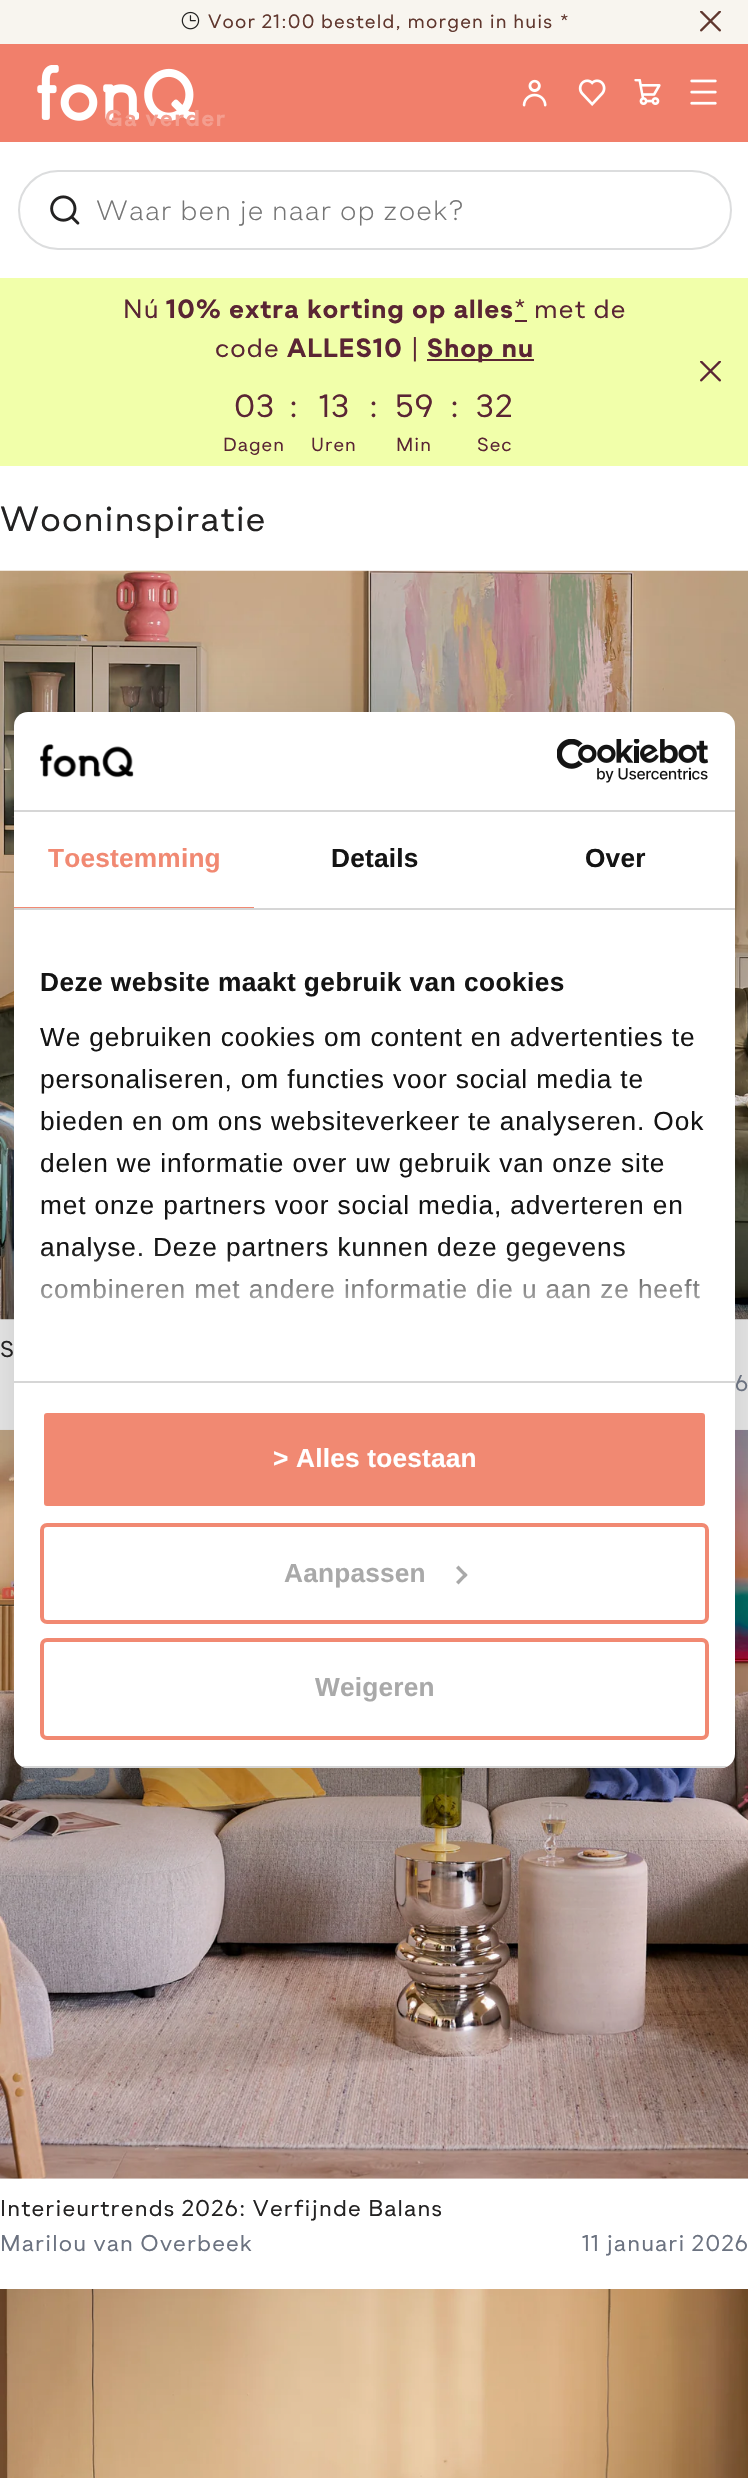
#include "include/core/SkBlurTypes.h"
#include "include/core/SkCanvas.h"
#include "include/core/SkData.h"
#include "include/core/SkFont.h"
#include "include/core/SkFontMgr.h"
#include "include/core/SkImage.h"
#include "include/core/SkMaskFilter.h"
#include "include/core/SkPaint.h"
#include "include/core/SkPathBuilder.h"
#include "include/core/SkTextBlob.h"
#include "include/effects/SkDashPathEffect.h"
#include "include/effects/SkGradientShader.h"
#include "include/utils/SkParsePath.h"

extern sk_sp<SkFontMgr> fontMgr;

void draw(SkCanvas* canvas) {
  SkPaint p;
  p.setAntiAlias(true);
  auto spacedText = [&](const char* s, float x, float y, const SkFont& font, const SkPaint& ink, float letter, float word) {
    std::vector<SkGlyphID> glyphs(font.countText(s, strlen(s), SkTextEncoding::kUTF8));
    std::vector<float> xs(glyphs.size());
    font.textToGlyphs(s, strlen(s), SkTextEncoding::kUTF8, glyphs);
    font.getXPos(glyphs, xs, x);
    float extra = 0;
    for (size_t i = 0; i < glyphs.size(); i++) {
      xs[i] += extra;
      extra += letter + word * (glyphs[i] == font.unicharToGlyph(' '));
    }
    canvas->drawTextBlob(SkTextBlob::MakeFromPosHGlyphs(glyphs, xs, y, font), 0, 0, ink);
  };
  canvas->clear(SK_ColorWHITE);
  p.setColor(SkColorSetRGB(248, 245, 239));
  canvas->drawRect(SkRect::MakeLTRB(0, 0, 748, 44), p);
  canvas->drawImageRect(SkImages::DeferredFromEncodedData(SkData::MakeFromFileName("images/1.png")), SkRect::MakeLTRB(181, 11, 200, 30), SkSamplingOptions());
  canvas->drawImageRect(SkImages::DeferredFromEncodedData(SkData::MakeFromFileName("images/2.png")), SkRect::MakeLTRB(700, 11, 721, 32), SkSamplingOptions());
  p.setColor(SkColorSetRGB(241, 127, 107));
  canvas->drawRect(SkRect::MakeLTRB(0, 44, 748, 142), p);
  canvas->drawImageRect(SkImages::DeferredFromEncodedData(SkData::MakeFromFileName("images/3.png")), SkRect::MakeLTRB(37, 65, 196, 121), SkSamplingOptions());
  canvas->drawImageRect(SkImages::DeferredFromEncodedData(SkData::MakeFromFileName("images/4.png")), SkRect::MakeLTRB(522, 79, 547, 107), SkSamplingOptions());
  canvas->drawImageRect(SkImages::DeferredFromEncodedData(SkData::MakeFromFileName("images/5.png")), SkRect::MakeLTRB(578, 79, 606, 106), SkSamplingOptions());
  canvas->drawImageRect(SkImages::DeferredFromEncodedData(SkData::MakeFromFileName("images/6.png")), SkRect::MakeLTRB(634, 79, 661, 105), SkSamplingOptions());
  canvas->drawImageRect(SkImages::DeferredFromEncodedData(SkData::MakeFromFileName("images/7.png")), SkRect::MakeLTRB(690, 79, 717, 105), SkSamplingOptions());
  p.setStyle(SkPaint::kStroke_Style);
  p.setStrokeWidth(2);
  p.setColor(SkColorSetRGB(220, 221, 222));
  canvas->drawRoundRect(SkRect::MakeLTRB(19, 171, 731, 249), 39, 39, p);
  canvas->drawImageRect(SkImages::DeferredFromEncodedData(SkData::MakeFromFileName("images/8.png")), SkRect::MakeLTRB(50, 195, 80, 225), SkSamplingOptions());
  p.setStyle(SkPaint::kFill_Style);
  p.setColor(SkColorSetRGB(241, 255, 170));
  canvas->drawRect(SkRect::MakeLTRB(0, 278, 748, 466), p);
  p.setColor(SkColorSetRGB(90, 37, 52));
  canvas->drawRect(SkRect::MakeLTRB(515, 320, 527, 322), p);
  canvas->drawRect(SkRect::MakeLTRB(427, 359, 534, 361), p);
  canvas->drawImageRect(SkImages::DeferredFromEncodedData(SkData::MakeFromFileName("images/9.png")), SkRect::MakeLTRB(700, 361, 721, 382), SkSamplingOptions());
  canvas->drawImageRect(SkImages::DeferredFromEncodedData(SkData::MakeFromFileName("images/10.png")), SkRect::MakeLTRB(0, 570, 748, 1320), SkSamplingOptions());
  canvas->drawImageRect(SkImages::DeferredFromEncodedData(SkData::MakeFromFileName("images/11.png")), SkRect::MakeLTRB(0, 1429, 748, 2179), SkSamplingOptions());
  canvas->drawImageRect(SkImages::DeferredFromEncodedData(SkData::MakeFromFileName("images/12.png")), SkRect::MakeLTRB(0, 2289, 748, 2478), SkSamplingOptions());
  p.setColor(SkColorSetARGB(77, 0, 0, 0));
  p.setMaskFilter(SkMaskFilter::MakeBlur(kNormal_SkBlurStyle, 59.5f));
  canvas->drawRoundRect(SkRect::MakeLTRB(14, 768, 735, 1824), 14, 14, p);
  p.setMaskFilter(nullptr);
  p.setColor(SK_ColorWHITE);
  canvas->drawRoundRect(SkRect::MakeLTRB(14, 712, 735, 1768), 14, 14, p);
  p.setColor(SkColorSetRGB(214, 214, 214));
  canvas->drawRect(SkRect::MakeLTRB(14, 810, 735, 812), p);
  canvas->drawImageRect(SkImages::DeferredFromEncodedData(SkData::MakeFromFileName("images/13.png")), SkRect::MakeLTRB(40, 744, 134, 778), SkSamplingOptions());
  canvas->drawImageRect(SkImages::DeferredFromEncodedData(SkData::MakeFromFileName("images/14.png")), SkRect::MakeLTRB(557, 739, 709, 783), SkSamplingOptions());
  canvas->drawRect(SkRect::MakeLTRB(14, 908, 735, 910), p);
  p.setColor(SkColorSetRGB(241, 137, 114));
  canvas->drawRect(SkRect::MakeLTRB(14, 907, 254, 908), p);
  p.setColor(SkColorSetRGB(214, 214, 214));
  canvas->drawRect(SkRect::MakeLTRB(14, 1381, 735, 1383), p);
  canvas->save();
  canvas->clipPath(SkPathBuilder().moveTo(28, 712).lineTo(721, 712).cubicTo(728.5f, 712, 735, 718.5f, 735, 726).lineTo(735, 1754).cubicTo(735, 1761.5f, 728.5f, 1768, 721, 1768).lineTo(28, 1768).cubicTo(20.5f, 1768, 14, 1761.5f, 14, 1754).lineTo(14, 726).cubicTo(14, 718.5f, 20.5f, 712, 28, 712).close().detach(), true);
  canvas->drawRect(SkRect::MakeLTRB(14, 1766, 735, 1768), p);
  canvas->restore();
  p.setColor(SkColorSetRGB(241, 137, 114));
  canvas->drawRoundRect(SkRect::MakeLTRB(42, 1411, 707, 1508), 5, 5, p);
  p.setStyle(SkPaint::kStroke_Style);
  p.setStrokeWidth(4);
  p.setColor(SK_ColorWHITE);
  canvas->drawRoundRect(SkRect::MakeLTRB(42, 1411, 707, 1508), 5, 5, p);
  p.setColor(SkColorSetRGB(241, 137, 114));
  canvas->drawRoundRect(SkRect::MakeLTRB(42, 1525, 707, 1622), 5, 5, p);
  p.setStyle(SkPaint::kFill_Style);
  p.setColor(SkColorSetRGB(169, 169, 169));
  canvas->drawPath(SkPathBuilder().moveTo(458.5f, 1565.5f).lineTo(467.5f, 1575).lineTo(465.5f, 1577.5f).lineTo(456, 1568).close().detach(), p);
  canvas->drawPath(SkPathBuilder().moveTo(465.5f, 1572.5f).lineTo(467.5f, 1575).lineTo(458.5f, 1584.5f).lineTo(456, 1582).close().detach(), p);
  p.setStyle(SkPaint::kStroke_Style);
  p.setColor(SkColorSetRGB(241, 137, 114));
  canvas->drawRoundRect(SkRect::MakeLTRB(42, 1640, 707, 1738), 5, 5, p);
  SkFont font1(fontMgr->matchFamilyStyle("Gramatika", SkFontStyle::Normal()), 19.25f);
  font1.setSubpixel(true);
  p.setStyle(SkPaint::kFill_Style);
  p.setColor(SkColorSetRGB(96, 55, 46));
  spacedText("Voor 21:00 besteld, morgen in huis", 208, 28, font1, p, 1.15f, 0);
  spacedText("*", 560, 28, font1, p, 1.15f, 0);
  SkFont font2(fontMgr->matchFamilyStyle("Gramatika", SkFontStyle::Bold()), 22.75f);
  font2.setSubpixel(true);
  p.setColor(SkColorSetRGB(244, 158, 143));
  spacedText("Ga verder", 105, 126, font2, p, 1.75f, 0);
  SkFont font3(fontMgr->matchFamilyStyle("Gramatika", SkFontStyle(300, SkFontStyle::kNormal_Width, SkFontStyle::kUpright_Slant)), 28);
  font3.setSubpixel(true);
  p.setColor(SkColorSetRGB(117, 117, 117));
  spacedText("Waar ben je naar op zoek?", 96, 220, font3, p, 1.15f, 0);
  SkFont font4(fontMgr->matchFamilyStyle("Gramatika", SkFontStyle::Normal()), 26.25f);
  font4.setSubpixel(true);
  p.setColor(SkColorSetRGB(90, 37, 52));
  spacedText("Nú", 123, 318, font4, p, 1.15f, 0);
  SkFont font5(fontMgr->matchFamilyStyle("Gramatika", SkFontStyle::Bold()), 26.25f);
  font5.setSubpixel(true);
  spacedText("10% extra korting op alles", 166, 318, font5, p, 1.15f, 0);
  spacedText("* met de", 514, 318, font4, p, 1.15f, 0);
  spacedText("code", 215, 357, font4, p, 1.15f, 0);
  spacedText("ALLES10", 287, 357, font5, p, 1.15f, 0);
  spacedText("|", 411, 357, font4, p, 1.15f, 0);
  spacedText("Shop nu", 427, 357, font5, p, 1.15f, 0);
  SkFont font6(fontMgr->matchFamilyStyle("Gramatika", SkFontStyle::Normal()), 32);
  font6.setSubpixel(true);
  spacedText("03", 234, 417, font6, p, 1.15f, 0);
  SkFont font7(fontMgr->matchFamilyStyle("Gramatika", SkFontStyle::Normal()), 19);
  font7.setSubpixel(true);
  spacedText("Dagen", 223, 451, font7, p, 1, 0);
  spacedText(":", 289, 417, font6, p, 1.15f, 0);
  spacedText("13", 319, 417, font6, p, 1.15f, 0);
  spacedText("Uren", 311, 451, font7, p, 1, 0);
  spacedText(":", 369, 417, font6, p, 1.15f, 0);
  spacedText("59", 395, 417, font6, p, 1.15f, 0);
  spacedText("Min", 396, 451, font7, p, 1, 0);
  spacedText(":", 450, 417, font6, p, 1.15f, 0);
  spacedText("32", 476, 417, font6, p, 1.15f, 0);
  spacedText("Sec", 477, 451, font7, p, 1, 0);
  SkFont font8(fontMgr->matchFamilyStyle("Gramatika", SkFontStyle::Normal()), 35);
  font8.setSubpixel(true);
  p.setColor(SkColorSetRGB(35, 34, 34));
  spacedText("Wooninspiratie", 0, 531, font8, p, 1.15f, 0);
  SkFont font9(fontMgr->matchFamilyStyle("Gramatika", SkFontStyle::Normal()), 22.75f);
  font9.setSubpixel(true);
  spacedText("S", 0, 1357, font9, p, 1.15f, 0);
  p.setColor(SkColorSetRGB(107, 114, 128));
  spacedText("6", 735, 1391, font9, p, 1.15f, 0);
  p.setColor(SkColorSetRGB(35, 34, 34));
  spacedText("Interieurtrends 2026: Verfijnde Balans", 0, 2216, font9, p, 1.15f, 0);
  p.setColor(SkColorSetRGB(107, 114, 128));
  spacedText("Marilou van Overbeek", 0, 2251, font9, p, 1.15f, 0);
  spacedText("11 januari 2026", 582, 2251, font9, p, 1.15f, 0);
  SkFont font10(fontMgr->matchFamilyStyle("Liberation Sans", SkFontStyle::Bold()), 26.25f);
  font10.setSubpixel(true);
  p.setColor(SkColorSetRGB(241, 137, 114));
  spacedText("Toestemming", 48, 867, font10, p, 0.2f, 0);
  p.setColor(SkColorSetRGB(20, 20, 20));
  spacedText("Details", 331, 867, font10, p, 0.2f, 0);
  spacedText("Over", 585, 867, font10, p, 0.2f, 0);
  spacedText("Deze website maakt gebruik van cookies", 40, 991, font10, p, 0.45f, 0);
  SkFont font11(fontMgr->matchFamilyStyle("Liberation Sans", SkFontStyle::Normal()), 26.25f);
  font11.setSubpixel(true);
  spacedText("We gebruiken cookies om content en advertenties te", 40, 1046, font11, p, 0.88f, 0);
  spacedText("personaliseren, om functies voor social media te", 40, 1088, font11, p, 0.88f, 0);
  spacedText("bieden en om ons websiteverkeer te analyseren. Ook", 40, 1130, font11, p, 0.88f, 0);
  spacedText("delen we informatie over uw gebruik van onze site", 40, 1172, font11, p, 0.88f, 0);
  spacedText("met onze partners voor social media, adverteren en", 40, 1214, font11, p, 0.88f, 0);
  spacedText("analyse. Deze partners kunnen deze gegevens", 40, 1256, font11, p, 0.88f, 0);
  spacedText("combineren met andere informatie die u aan ze heeft", 40, 1298, font11, p, 0.88f, 0);
  {
    const SkColor colors[] = {SK_ColorWHITE, SkColorSetARGB(204, 255, 255, 255), SkColorSetARGB(0, 255, 255, 255)};
    const float stops[] = {0, 0.5f, 1};
    const SkPoint ends[] = {{363, 1380}, {363, 1249}};
    p.setShader(SkGradientShader::MakeLinear(ends, colors, stops, 3, SkTileMode::kClamp));
    p.setAlpha(255);
  }
  canvas->drawRect(SkRect::MakeLTRB(41, 1251, 700, 1299), p);
  p.setShader(nullptr);
  p.setColor(SK_ColorWHITE);
  spacedText("> Alles toestaan", 273, 1467, font10, p, 0.2f, 0);
  p.setColor(SkColorSetRGB(169, 169, 169));
  spacedText("Aanpassen", 284, 1582, font10, p, 0.2f, 0);
  spacedText("Weigeren", 315, 1696, font10, p, 0.2f, 0);
}
